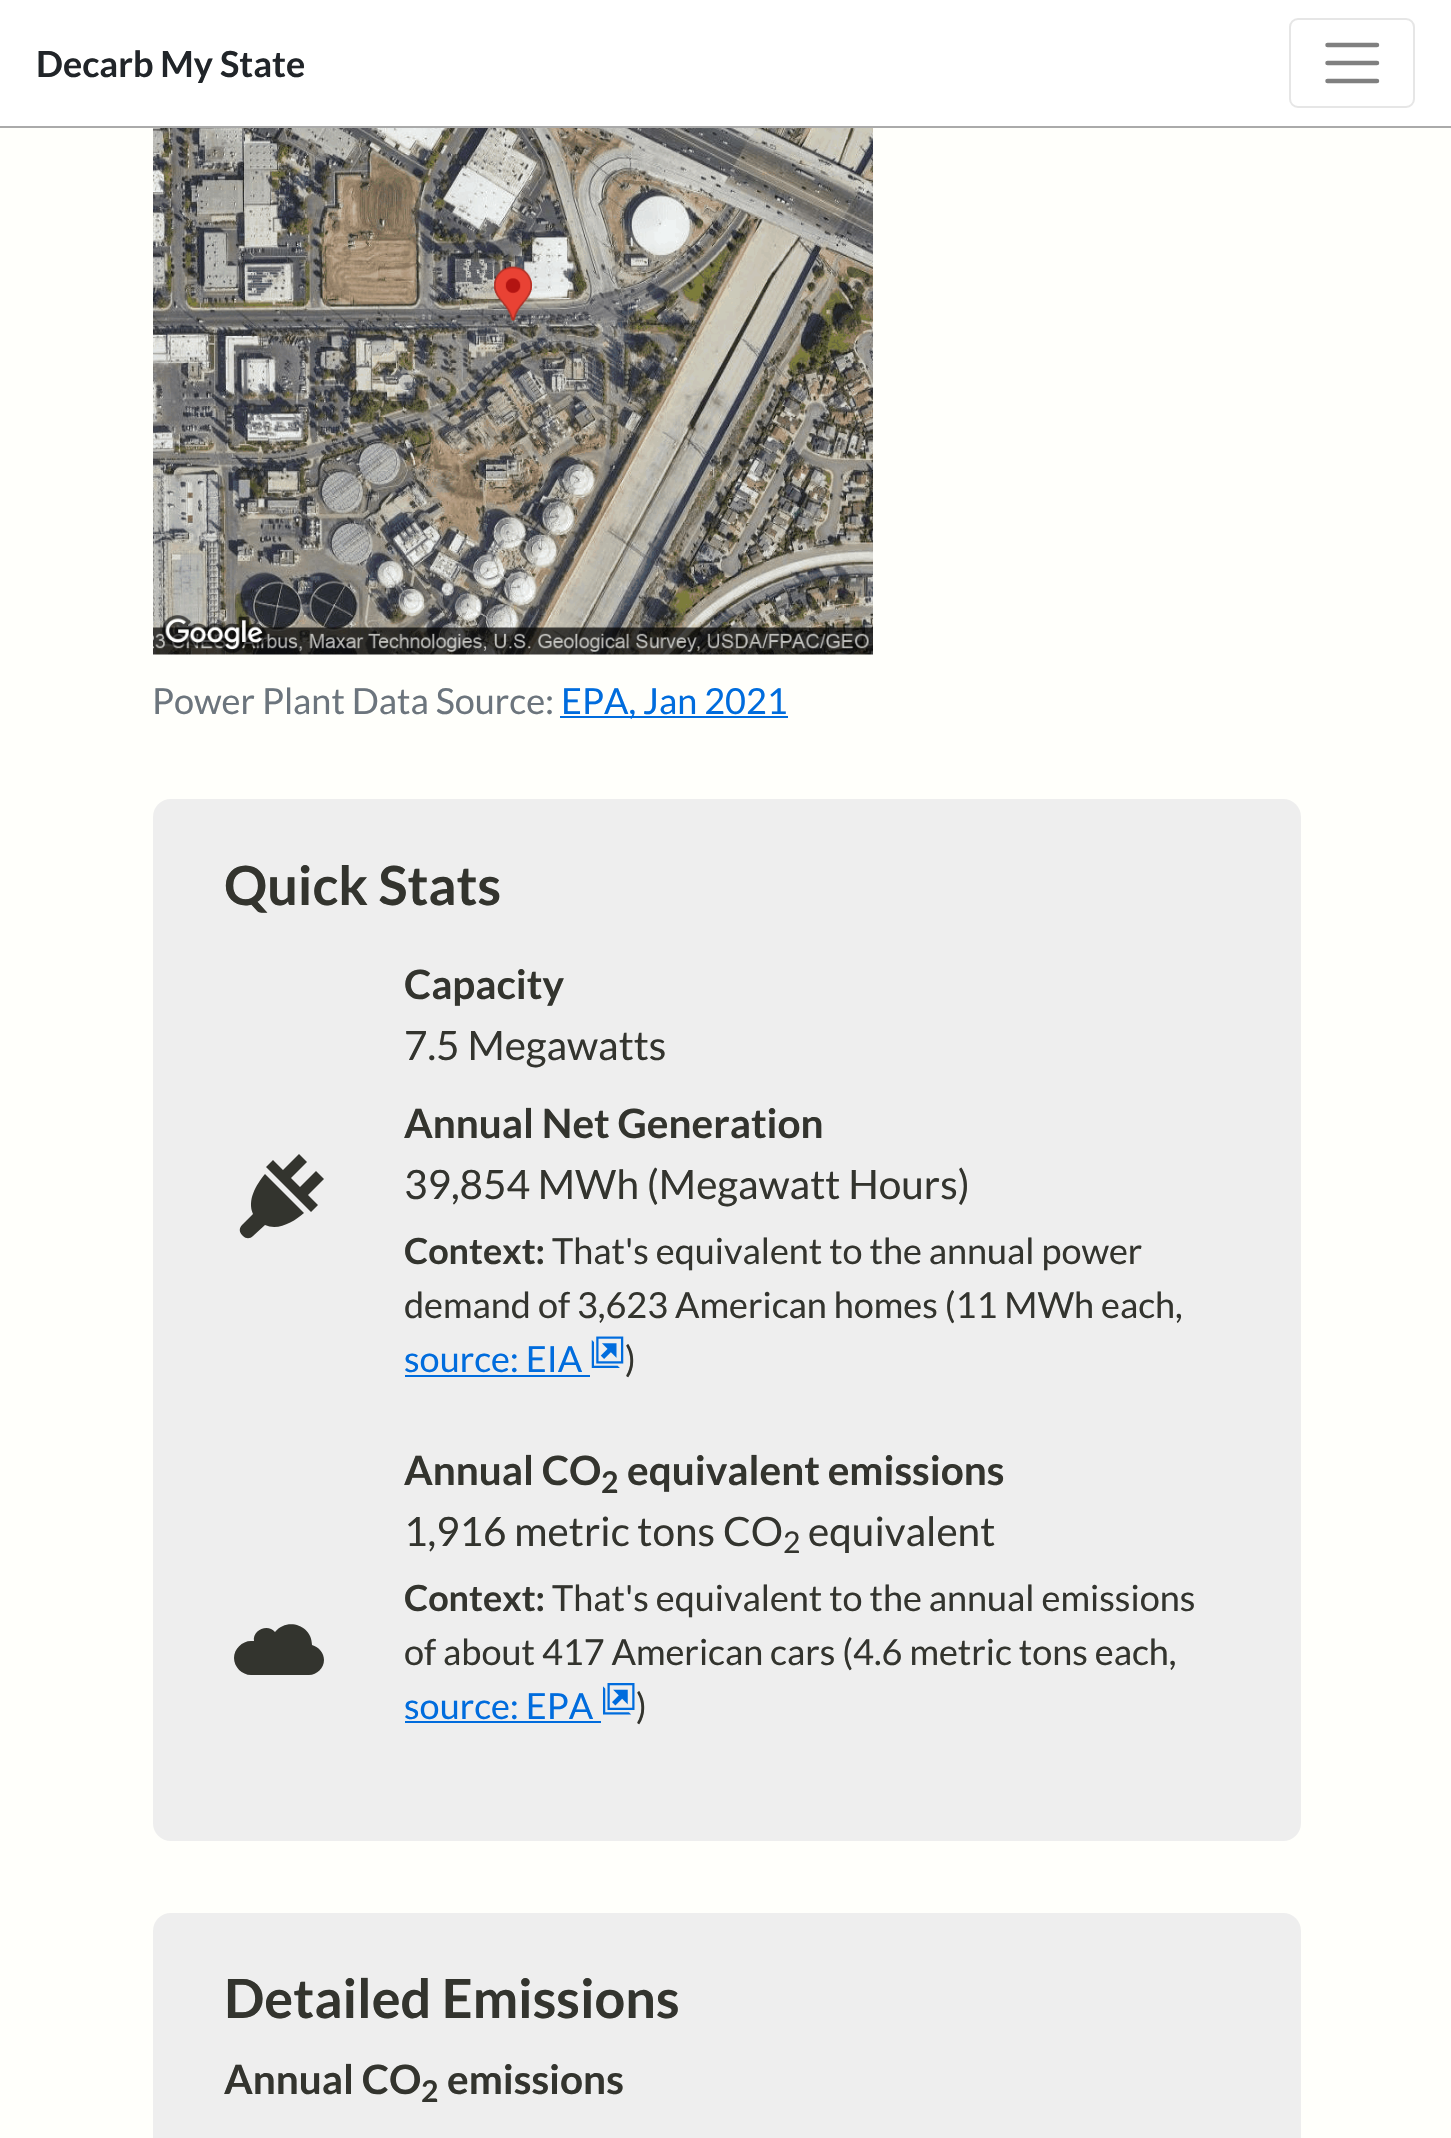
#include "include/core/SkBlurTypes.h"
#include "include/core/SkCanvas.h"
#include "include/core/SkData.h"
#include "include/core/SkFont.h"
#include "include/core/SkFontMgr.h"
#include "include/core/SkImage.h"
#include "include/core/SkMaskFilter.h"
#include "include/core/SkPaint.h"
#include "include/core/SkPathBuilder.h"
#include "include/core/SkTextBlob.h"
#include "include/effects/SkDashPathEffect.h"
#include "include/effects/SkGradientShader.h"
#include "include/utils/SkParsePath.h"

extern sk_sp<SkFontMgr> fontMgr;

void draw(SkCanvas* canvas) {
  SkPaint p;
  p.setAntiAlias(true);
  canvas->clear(SkColorSetRGB(255, 255, 251));
  p.setColor(SK_ColorWHITE);
  canvas->drawRect(SkRect::MakeLTRB(0, 0, 1451, 126), p);
  p.setColor(SkColorSetRGB(170, 170, 170));
  canvas->drawRect(SkRect::MakeLTRB(0, 126, 1451, 128), p);
  p.setStyle(SkPaint::kStroke_Style);
  p.setStrokeWidth(2);
  p.setColor(SkColorSetRGB(230, 230, 230));
  canvas->drawRoundRect(SkRect::MakeLTRB(1290, 19, 1414, 107), 8, 8, p);
  p.setStrokeWidth(4.5f);
  p.setStrokeCap(SkPaint::kRound_Cap);
  p.setColor(SkColorSetRGB(128, 128, 128));
  canvas->drawPath(SkPathBuilder().moveTo(1327.5f, 45).lineTo(1377, 45).moveTo(1327.5f, 63).lineTo(1377, 63).moveTo(1327.5f, 81).lineTo(1377, 81).detach(), p);
  canvas->drawImageRect(SkImages::DeferredFromEncodedData(SkData::MakeFromFileName("images/1.png")), SkRect::MakeLTRB(153, 128, 873, 655), SkSamplingOptions());
  p.setStyle(SkPaint::kFill_Style);
  p.setColor(SkColorSetRGB(0, 108, 221));
  canvas->drawRect(SkRect::MakeLTRB(560, 716, 788, 718), p);
  p.setColor(SkColorSetRGB(238, 238, 238));
  canvas->drawRoundRect(SkRect::MakeLTRB(153, 799, 1301, 1841), 18, 18, p);
  p.setColor(SkColorSetRGB(51, 52, 46));
  canvas->drawPath(SkPathBuilder().moveTo(324, 1179).lineTo(316, 1171).lineTo(300, 1187).lineTo(291, 1178).lineTo(307, 1162).lineTo(299, 1154).lineTo(283, 1170).lineTo(273, 1160).lineTo(266, 1167).lineTo(311, 1212).lineTo(318, 1205).lineTo(308, 1195).close().detach(), p);
  canvas->drawPath(SkPathBuilder().moveTo(304, 1213).lineTo(265, 1174).cubicTo(256, 1185, 247, 1200, 253, 1214).lineTo(242, 1225).cubicTo(239, 1228, 239, 1232, 242, 1235).lineTo(243, 1236).cubicTo(246, 1239, 250, 1239, 253, 1236).lineTo(265, 1225).cubicTo(278, 1231, 294, 1222, 304, 1213).close().detach(), p);
  p.setColor(SkColorSetRGB(0, 108, 221));
  canvas->drawRect(SkRect::MakeLTRB(405, 1375, 590, 1377), p);
  canvas->drawImageRect(SkImages::DeferredFromEncodedData(SkData::MakeFromFileName("images/2.png")), SkRect::MakeLTRB(591, 1336, 624, 1368), SkSamplingOptions());
  canvas->drawRect(SkRect::MakeLTRB(405, 1721, 601, 1723), p);
  canvas->drawImageRect(SkImages::DeferredFromEncodedData(SkData::MakeFromFileName("images/3.png")), SkRect::MakeLTRB(603, 1683, 635, 1715), SkSamplingOptions());
  p.setColor(SkColorSetRGB(51, 52, 46));
  canvas->drawPath(SkPathBuilder().moveTo(324, 1660).cubicTo(324, 1653, 319, 1647, 312, 1645).cubicTo(312, 1625, 287, 1617, 275, 1632).cubicTo(268, 1623, 252, 1630, 254, 1641).lineTo(251, 1641).cubicTo(242, 1641, 234, 1649, 234, 1658).cubicTo(234, 1667, 242, 1675, 251, 1675).lineTo(309, 1675).cubicTo(317, 1675, 324, 1668, 324, 1660).close().detach(), p);
  p.setColor(SkColorSetRGB(238, 238, 238));
  canvas->drawRoundRect(SkRect::MakeLTRB(153, 1913, 1301, 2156), 18, 18, p);
  SkFont font1(fontMgr->matchFamilyStyle("Lato", SkFontStyle::Bold()), 36);
  font1.setSubpixel(true);
  p.setColor(SkColorSetRGB(33, 37, 41));
  canvas->drawString("Decarb My State", 36, 77, font1, p);
  SkFont font2(fontMgr->matchFamilyStyle("Lato", SkFontStyle::Normal()), 36);
  font2.setSubpixel(true);
  p.setColor(SkColorSetRGB(108, 117, 125));
  canvas->drawString("Power Plant Data Source:", 152, 714, font2, p);
  p.setColor(SkColorSetRGB(0, 108, 221));
  canvas->drawString("EPA, Jan 2021", 561, 714, font2, p);
  SkFont font3(fontMgr->matchFamilyStyle("Lato", SkFontStyle::Bold()), 54);
  font3.setSubpixel(true);
  p.setColor(SkColorSetRGB(51, 52, 46));
  canvas->drawString("Quick Stats", 224, 905, font3, p);
  SkFont font4(fontMgr->matchFamilyStyle("Lato", SkFontStyle::Bold()), 40.5f);
  font4.setSubpixel(true);
  canvas->drawString("Capacity", 404, 999, font4, p);
  SkFont font5(fontMgr->matchFamilyStyle("Lato", SkFontStyle::Normal()), 40.5f);
  font5.setSubpixel(true);
  canvas->drawString("7.5 Megawatts", 404, 1060, font5, p);
  canvas->drawString("Annual Net Generation", 404, 1138, font4, p);
  canvas->drawString("39,854 MWh (Megawatt Hours)", 404, 1199, font5, p);
  canvas->drawString("Context:", 404, 1264, font1, p);
  canvas->drawString("That's equivalent to the annual power", 552, 1264, font2, p);
  canvas->drawString("demand of 3,623 American homes (11 MWh each,", 404, 1318, font2, p);
  p.setColor(SkColorSetRGB(0, 108, 221));
  canvas->drawString("source: EIA", 404, 1372, font2, p);
  p.setColor(SkColorSetRGB(51, 52, 46));
  canvas->drawString(")", 625, 1372, font2, p);
  canvas->drawString("Annual CO", 404, 1485, font4, p);
  SkFont font6(fontMgr->matchFamilyStyle("Lato", SkFontStyle::Bold()), 30);
  font6.setSubpixel(true);
  canvas->drawString("2", 601, 1493, font6, p);
  canvas->drawString("equivalent emissions", 627, 1485, font4, p);
  canvas->drawString("1,916 metric tons CO", 404, 1546, font5, p);
  SkFont font7(fontMgr->matchFamilyStyle("Lato", SkFontStyle::Normal()), 30);
  font7.setSubpixel(true);
  canvas->drawString("2", 783, 1553, font7, p);
  canvas->drawString("equivalent", 808, 1546, font5, p);
  canvas->drawString("Context:", 404, 1611, font1, p);
  canvas->drawString("That's equivalent to the annual emissions", 552, 1611, font2, p);
  canvas->drawString("of about 417 American cars (4.6 metric tons each,", 404, 1665, font2, p);
  p.setColor(SkColorSetRGB(0, 108, 221));
  canvas->drawString("source: EPA", 404, 1719, font2, p);
  p.setColor(SkColorSetRGB(51, 52, 46));
  canvas->drawString(")", 636, 1719, font2, p);
  canvas->drawString("Detailed Emissions", 224, 2018, font3, p);
  canvas->drawString("Annual CO", 224, 2094, font4, p);
  canvas->drawString("2", 421, 2102, font6, p);
  canvas->drawString("emissions", 447, 2094, font4, p);
}
